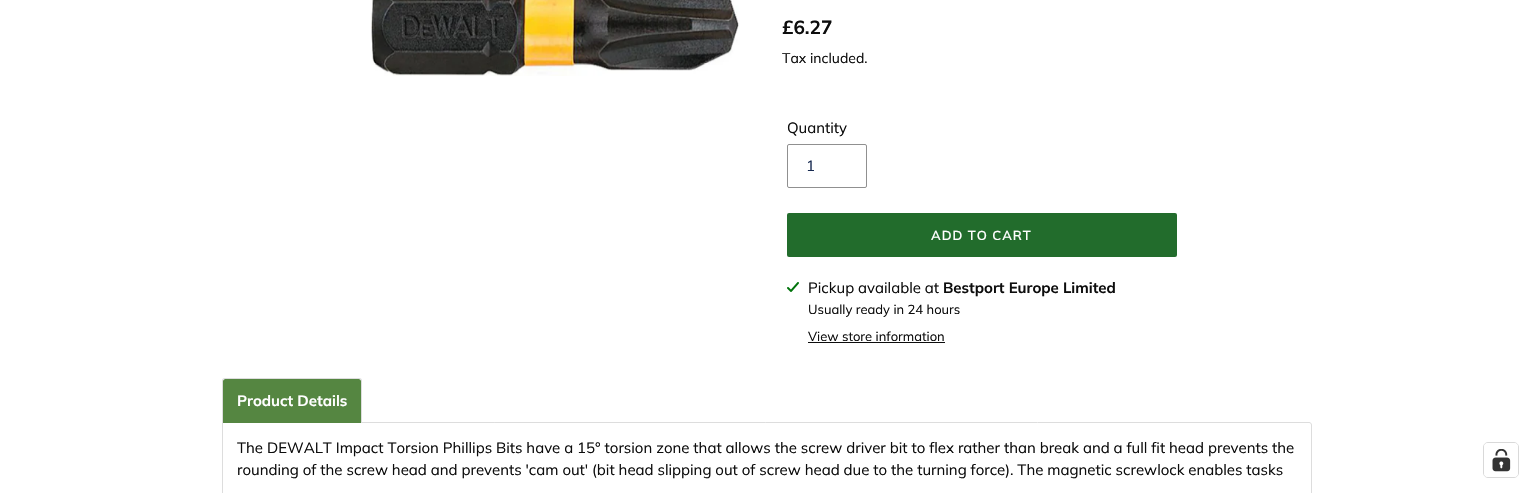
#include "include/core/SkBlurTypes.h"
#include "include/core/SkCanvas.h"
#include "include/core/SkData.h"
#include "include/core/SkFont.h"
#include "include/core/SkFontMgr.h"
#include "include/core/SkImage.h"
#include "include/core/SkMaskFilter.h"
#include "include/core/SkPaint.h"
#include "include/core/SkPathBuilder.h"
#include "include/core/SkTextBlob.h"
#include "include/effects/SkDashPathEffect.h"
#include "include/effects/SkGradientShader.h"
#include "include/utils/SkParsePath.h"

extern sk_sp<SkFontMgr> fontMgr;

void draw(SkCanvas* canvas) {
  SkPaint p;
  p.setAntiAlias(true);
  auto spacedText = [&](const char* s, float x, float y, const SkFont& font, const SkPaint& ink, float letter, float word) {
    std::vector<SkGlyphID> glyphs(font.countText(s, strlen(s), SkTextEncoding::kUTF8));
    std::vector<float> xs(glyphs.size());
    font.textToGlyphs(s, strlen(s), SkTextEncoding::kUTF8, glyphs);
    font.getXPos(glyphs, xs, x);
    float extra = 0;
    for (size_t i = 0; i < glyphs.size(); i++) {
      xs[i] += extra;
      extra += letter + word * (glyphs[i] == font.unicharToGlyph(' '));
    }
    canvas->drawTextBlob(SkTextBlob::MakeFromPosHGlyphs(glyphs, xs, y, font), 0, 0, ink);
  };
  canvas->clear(SK_ColorWHITE);
  canvas->drawImageRect(SkImages::DeferredFromEncodedData(SkData::MakeFromFileName("images/1.png")), SkRect::MakeLTRB(370, 0, 740, 76), SkSamplingOptions());
  p.setStyle(SkPaint::kStroke_Style);
  p.setStrokeWidth(1);
  p.setColor(SkColorSetRGB(144, 144, 144));
  canvas->drawRoundRect(SkRect::MakeLTRB(787.5f, 144.5f, 866.5f, 187.5f), 1.5f, 1.5f, p);
  p.setStyle(SkPaint::kFill_Style);
  p.setColor(SkColorSetRGB(34, 108, 44));
  canvas->drawRoundRect(SkRect::MakeLTRB(787, 213, 1177, 257), 2, 2, p);
  canvas->drawImageRect(SkImages::DeferredFromEncodedData(SkData::MakeFromFileName("images/2.png")), SkRect::MakeLTRB(787, 282, 799, 292), SkSamplingOptions());
  p.setColor(SkColorSetRGB(13, 13, 13));
  canvas->drawRect(SkRect::MakeLTRB(808, 342, 945, 343), p);
  p.setStyle(SkPaint::kStroke_Style);
  p.setColor(SkColorSetRGB(221, 221, 221));
  canvas->drawPath(SkPathBuilder().moveTo(222.5f, 422.5f).lineTo(1309, 422.5f).cubicTo(1310.5f, 422.5f, 1311.5f, 423.5f, 1311.5f, 425).lineTo(1311.5f, 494).cubicTo(1311.5f, 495.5f, 1310.5f, 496.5f, 1309, 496.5f).lineTo(225, 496.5f).cubicTo(223.5f, 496.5f, 222.5f, 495.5f, 222.5f, 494).close().detach(), p);
  p.setStyle(SkPaint::kFill_Style);
  p.setColor(SkColorSetRGB(85, 134, 65));
  canvas->drawPath(SkPathBuilder().moveTo(225, 379).lineTo(359, 379).cubicTo(360, 379, 361, 380, 361, 381).lineTo(361, 423).lineTo(223, 423).lineTo(223, 381).cubicTo(223, 380, 224, 379, 225, 379).close().detach(), p);
  p.setColor(SkColorSetRGB(221, 221, 221));
  canvas->drawPath(SkPathBuilder(SkPathFillType::kEvenOdd).moveTo(225, 378).lineTo(359, 378).cubicTo(361, 378, 362, 379, 362, 381).lineTo(362, 423).lineTo(222, 423).lineTo(222, 381).cubicTo(222, 379, 223, 378, 225, 378).close().moveTo(225, 379).lineTo(359, 379).cubicTo(360, 379, 361, 380, 361, 381).lineTo(361, 423).lineTo(223, 423).lineTo(223, 381).cubicTo(223, 380, 224, 379, 225, 379).close().detach(), p);
  p.setStyle(SkPaint::kStroke_Style);
  p.setColor(SkColorSetRGB(217, 217, 217));
  canvas->drawRoundRect(SkRect::MakeLTRB(1483.5f, 442.5f, 1518.5f, 477.5f), 4.5f, 4.5f, p);
  p.setStyle(SkPaint::kFill_Style);
  p.setColor(SK_ColorWHITE);
  canvas->drawRoundRect(SkRect::MakeLTRB(1484, 443, 1518, 477), 4, 4, p);
  canvas->drawImageRect(SkImages::DeferredFromEncodedData(SkData::MakeFromFileName("images/3.png")), SkRect::MakeLTRB(1492, 449, 1511, 472), SkSamplingOptions());
  SkFont font1(fontMgr->matchFamilyStyle("Muli", SkFontStyle::Bold()), 19);
  font1.setSubpixel(true);
  p.setColor(SkColorSetRGB(13, 13, 13));
  canvas->drawString("£6.27", 782, 34, font1, p);
  SkFont font2(fontMgr->matchFamilyStyle("Muli", SkFontStyle::Normal()), 14);
  font2.setSubpixel(true);
  canvas->drawString("Tax included.", 782, 63, font2, p);
  SkFont font3(fontMgr->matchFamilyStyle("Muli", SkFontStyle::Normal()), 15);
  font3.setSubpixel(true);
  canvas->drawString("Quantity", 787, 133, font3, p);
  p.setColor(SkColorSetRGB(22, 41, 80));
  canvas->drawString("1", 806, 171, font3, p);
  SkFont font4(fontMgr->matchFamilyStyle("Muli", SkFontStyle(600, SkFontStyle::kNormal_Width, SkFontStyle::kUpright_Slant)), 13);
  font4.setSubpixel(true);
  p.setColor(SK_ColorWHITE);
  spacedText("ADD TO CART", 931, 240, font4, p, 1, 0);
  p.setColor(SkColorSetRGB(13, 13, 13));
  canvas->drawString("Pickup available at", 808, 293, font3, p);
  SkFont font5(fontMgr->matchFamilyStyle("Muli", SkFontStyle::Bold()), 15);
  font5.setSubpixel(true);
  canvas->drawString("Bestport Europe Limited", 943, 293, font5, p);
  SkFont font6(fontMgr->matchFamilyStyle("Muli", SkFontStyle::Normal()), 13);
  font6.setSubpixel(true);
  canvas->drawString("Usually ready in 24 hours", 808, 314, font6, p);
  canvas->drawString("View store information", 808, 341, font6, p);
  p.setColor(SK_ColorWHITE);
  canvas->drawString("Product Details", 237, 406, font5, p);
  p.setColor(SkColorSetRGB(13, 13, 13));
  canvas->drawString("The DEWALT Impact Torsion Phillips Bits have a 15° torsion zone that allows the screw driver bit to flex rather than break and a full fit head prevents the", 237, 453, font3, p);
  canvas->drawString("rounding of the screw head and prevents 'cam out' (bit head slipping out of screw head due to the turning force). The magnetic screwlock enables tasks", 237, 475, font3, p);
}
